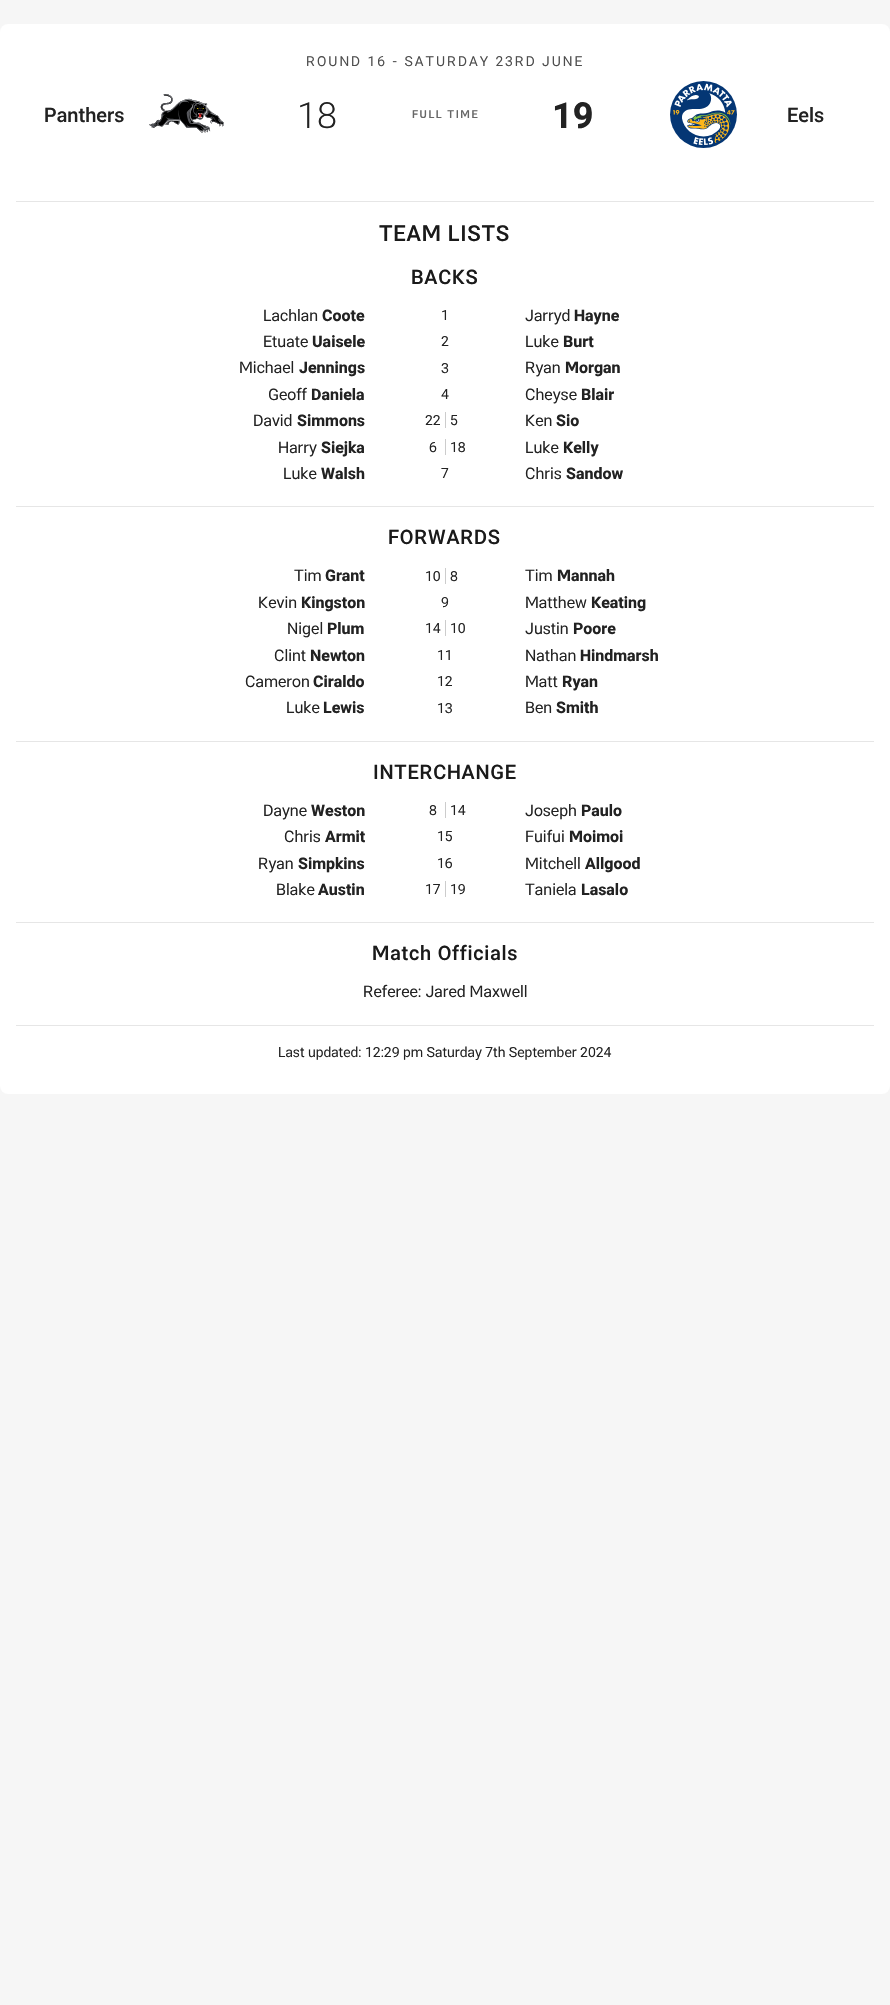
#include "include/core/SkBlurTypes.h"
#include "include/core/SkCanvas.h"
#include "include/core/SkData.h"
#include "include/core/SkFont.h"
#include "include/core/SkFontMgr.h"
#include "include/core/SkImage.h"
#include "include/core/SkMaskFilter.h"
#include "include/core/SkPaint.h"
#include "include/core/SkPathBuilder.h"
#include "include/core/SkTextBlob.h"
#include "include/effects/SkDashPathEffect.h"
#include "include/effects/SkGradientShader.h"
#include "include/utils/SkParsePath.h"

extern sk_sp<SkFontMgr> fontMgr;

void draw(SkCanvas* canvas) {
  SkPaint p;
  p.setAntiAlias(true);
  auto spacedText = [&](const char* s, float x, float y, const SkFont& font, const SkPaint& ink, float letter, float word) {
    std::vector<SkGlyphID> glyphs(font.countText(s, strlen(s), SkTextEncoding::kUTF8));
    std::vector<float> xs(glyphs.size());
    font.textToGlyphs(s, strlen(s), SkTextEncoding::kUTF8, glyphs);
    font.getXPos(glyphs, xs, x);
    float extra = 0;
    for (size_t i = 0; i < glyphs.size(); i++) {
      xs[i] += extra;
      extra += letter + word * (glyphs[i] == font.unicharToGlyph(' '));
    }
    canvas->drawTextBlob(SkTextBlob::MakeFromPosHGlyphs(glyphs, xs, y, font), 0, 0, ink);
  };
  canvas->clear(SkColorSetRGB(246, 246, 246));
  p.setColor(SK_ColorWHITE);
  canvas->drawRoundRect(SkRect::MakeLTRB(0, 24, 890, 1094), 8, 8, p);
  canvas->drawImageRect(SkImages::DeferredFromEncodedData(SkData::MakeFromFileName("images/1.png")), SkRect::MakeLTRB(149, 94, 224, 133), SkSamplingOptions());
  canvas->drawImageRect(SkImages::DeferredFromEncodedData(SkData::MakeFromFileName("images/2.png")), SkRect::MakeLTRB(670, 81, 737, 148), SkSamplingOptions());
  p.setColor(SkColorSetRGB(230, 230, 230));
  canvas->drawRect(SkRect::MakeLTRB(16, 201, 874, 202), p);
  p.setColor(SkColorSetRGB(204, 204, 204));
  canvas->drawRect(SkRect::MakeLTRB(445, 412, 446, 428), p);
  canvas->drawRect(SkRect::MakeLTRB(445, 439, 446, 455), p);
  p.setColor(SkColorSetRGB(230, 230, 230));
  canvas->drawRect(SkRect::MakeLTRB(16, 506, 874, 507), p);
  p.setColor(SkColorSetRGB(204, 204, 204));
  canvas->drawRect(SkRect::MakeLTRB(445, 568, 446, 584), p);
  canvas->drawRect(SkRect::MakeLTRB(445, 620, 446, 636), p);
  p.setColor(SkColorSetRGB(230, 230, 230));
  canvas->drawRect(SkRect::MakeLTRB(16, 741, 874, 742), p);
  p.setColor(SkColorSetRGB(204, 204, 204));
  canvas->drawRect(SkRect::MakeLTRB(445, 802, 446, 818), p);
  canvas->drawRect(SkRect::MakeLTRB(445, 881, 446, 897), p);
  p.setColor(SkColorSetRGB(230, 230, 230));
  canvas->drawRect(SkRect::MakeLTRB(16, 922, 874, 923), p);
  canvas->drawRect(SkRect::MakeLTRB(16, 1025, 874, 1026), p);
  SkFont font1(fontMgr->matchFamilyStyle("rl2", SkFontStyle::Normal()), 13.75f);
  font1.setSubpixel(true);
  p.setColor(SkColorSetRGB(77, 77, 77));
  spacedText("ROUND 16 - SATURDAY 23RD JUNE", 306, 66, font1, p, 2, 0);
  SkFont font2(fontMgr->matchFamilyStyle("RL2", SkFontStyle(500, SkFontStyle::kNormal_Width, SkFontStyle::kUpright_Slant)), 20);
  font2.setSubpixel(true);
  p.setColor(SkColorSetRGB(34, 34, 34));
  canvas->drawString("Panthers", 44, 122, font2, p);
  SkFont font3(fontMgr->matchFamilyStyle("RL2", SkFontStyle(300, SkFontStyle::kNormal_Width, SkFontStyle::kUpright_Slant)), 36);
  font3.setSubpixel(true);
  canvas->drawString("18", 297, 128, font3, p);
  SkFont font4(fontMgr->matchFamilyStyle("RL2", SkFontStyle(500, SkFontStyle::kNormal_Width, SkFontStyle::kUpright_Slant)), 11);
  font4.setSubpixel(true);
  p.setColor(SkColorSetRGB(102, 102, 102));
  spacedText("FULL TIME", 412, 118, font4, p, 1.5f, 0);
  SkFont font5(fontMgr->matchFamilyStyle("RL2", SkFontStyle::Bold()), 36);
  font5.setSubpixel(true);
  p.setColor(SkColorSetRGB(34, 34, 34));
  canvas->drawString("19", 552, 128, font5, p);
  canvas->drawString("Eels", 787, 122, font2, p);
  SkFont font6(fontMgr->matchFamilyStyle("RL2", SkFontStyle(500, SkFontStyle::kNormal_Width, SkFontStyle::kUpright_Slant)), 22);
  font6.setSubpixel(true);
  p.setColor(SkColorSetRGB(26, 26, 26));
  spacedText("TEAM LISTS", 379, 241, font6, p, 0.75f, 0);
  spacedText("BACKS", 411, 284, font2, p, 0.75f, 0);
  SkFont font7(fontMgr->matchFamilyStyle("rl2", SkFontStyle::Normal()), 16);
  font7.setSubpixel(true);
  p.setColor(SkColorSetRGB(34, 34, 34));
  canvas->drawString("Lachlan", 263, 321, font7, p);
  SkFont font8(fontMgr->matchFamilyStyle("RL2", SkFontStyle::Bold()), 16);
  font8.setSubpixel(true);
  canvas->drawString("Coote", 322, 321, font8, p);
  SkFont font9(fontMgr->matchFamilyStyle("rl2", SkFontStyle::Normal()), 14);
  font9.setSubpixel(true);
  canvas->drawString("1", 441, 320, font9, p);
  canvas->drawString("Jarryd", 525, 321, font7, p);
  canvas->drawString("Hayne", 574, 321, font8, p);
  canvas->drawString("Etuate", 263, 347, font7, p);
  canvas->drawString("Uaisele", 312, 347, font8, p);
  canvas->drawString("2", 441, 346, font9, p);
  canvas->drawString("Luke", 525, 347, font7, p);
  canvas->drawString("Burt", 563, 347, font8, p);
  canvas->drawString("Michael", 239, 373, font7, p);
  canvas->drawString("Jennings", 299, 373, font8, p);
  canvas->drawString("3", 441, 373, font9, p);
  canvas->drawString("Ryan", 525, 373, font7, p);
  canvas->drawString("Morgan", 565, 373, font8, p);
  canvas->drawString("Geoff", 268, 400, font7, p);
  canvas->drawString("Daniela", 311, 400, font8, p);
  canvas->drawString("4", 441, 399, font9, p);
  canvas->drawString("Cheyse", 525, 400, font7, p);
  canvas->drawString("Blair", 581, 400, font8, p);
  canvas->drawString("David", 253, 426, font7, p);
  canvas->drawString("Simmons", 297, 426, font8, p);
  canvas->drawString("22", 425, 425, font9, p);
  canvas->drawString("5", 450, 425, font9, p);
  canvas->drawString("Ken", 525, 426, font7, p);
  canvas->drawString("Sio", 556, 426, font8, p);
  canvas->drawString("Harry", 278, 453, font7, p);
  canvas->drawString("Siejka", 321, 453, font8, p);
  canvas->drawString("6", 429, 452, font9, p);
  canvas->drawString("18", 450, 452, font9, p);
  canvas->drawString("Luke", 525, 453, font7, p);
  canvas->drawString("Kelly", 563, 453, font8, p);
  canvas->drawString("Luke", 283, 479, font7, p);
  canvas->drawString("Walsh", 321, 479, font8, p);
  canvas->drawString("7", 441, 478, font9, p);
  canvas->drawString("Chris", 525, 479, font7, p);
  canvas->drawString("Sandow", 566, 479, font8, p);
  p.setColor(SkColorSetRGB(26, 26, 26));
  spacedText("FORWARDS", 388, 544, font2, p, 0.75f, 0);
  p.setColor(SkColorSetRGB(34, 34, 34));
  canvas->drawString("Tim", 294, 581, font7, p);
  canvas->drawString("Grant", 325, 581, font8, p);
  canvas->drawString("10", 425, 581, font9, p);
  canvas->drawString("8", 450, 581, font9, p);
  canvas->drawString("Tim", 525, 581, font7, p);
  canvas->drawString("Mannah", 557, 581, font8, p);
  canvas->drawString("Kevin", 258, 608, font7, p);
  canvas->drawString("Kingston", 301, 608, font8, p);
  canvas->drawString("9", 441, 607, font9, p);
  canvas->drawString("Matthew", 525, 608, font7, p);
  canvas->drawString("Keating", 591, 608, font8, p);
  canvas->drawString("Nigel", 287, 634, font7, p);
  canvas->drawString("Plum", 327, 634, font8, p);
  canvas->drawString("14", 425, 633, font9, p);
  canvas->drawString("10", 450, 633, font9, p);
  canvas->drawString("Justin", 525, 634, font7, p);
  canvas->drawString("Poore", 573, 634, font8, p);
  canvas->drawString("Clint", 274, 661, font7, p);
  canvas->drawString("Newton", 310, 661, font8, p);
  canvas->drawString("11", 437, 660, font9, p);
  canvas->drawString("Nathan", 525, 661, font7, p);
  canvas->drawString("Hindmarsh", 580, 661, font8, p);
  canvas->drawString("Cameron", 245, 687, font7, p);
  canvas->drawString("Ciraldo", 313, 687, font8, p);
  canvas->drawString("12", 437, 686, font9, p);
  canvas->drawString("Matt", 525, 687, font7, p);
  canvas->drawString("Ryan", 562, 687, font8, p);
  canvas->drawString("Luke", 286, 713, font7, p);
  canvas->drawString("Lewis", 323, 713, font8, p);
  canvas->drawString("13", 437, 713, font9, p);
  canvas->drawString("Ben", 525, 713, font7, p);
  canvas->drawString("Smith", 556, 713, font8, p);
  p.setColor(SkColorSetRGB(26, 26, 26));
  spacedText("INTERCHANGE", 373, 779, font2, p, 0.75f, 0);
  p.setColor(SkColorSetRGB(34, 34, 34));
  canvas->drawString("Dayne", 263, 816, font7, p);
  canvas->drawString("Weston", 311, 816, font8, p);
  canvas->drawString("8", 429, 815, font9, p);
  canvas->drawString("14", 450, 815, font9, p);
  canvas->drawString("Joseph", 525, 816, font7, p);
  canvas->drawString("Paulo", 581, 816, font8, p);
  canvas->drawString("Chris", 284, 842, font7, p);
  canvas->drawString("Armit", 325, 842, font8, p);
  canvas->drawString("15", 437, 841, font9, p);
  canvas->drawString("Fuifui", 525, 842, font7, p);
  canvas->drawString("Moimoi", 569, 842, font8, p);
  canvas->drawString("Ryan", 258, 869, font7, p);
  canvas->drawString("Simpkins", 298, 869, font8, p);
  canvas->drawString("16", 437, 868, font9, p);
  canvas->drawString("Mitchell", 525, 869, font7, p);
  canvas->drawString("Allgood", 585, 869, font8, p);
  canvas->drawString("Blake", 276, 895, font7, p);
  canvas->drawString("Austin", 318, 895, font8, p);
  canvas->drawString("17", 425, 894, font9, p);
  canvas->drawString("19", 450, 894, font9, p);
  canvas->drawString("Taniela", 525, 895, font7, p);
  canvas->drawString("Lasalo", 581, 895, font8, p);
  p.setColor(SkColorSetRGB(26, 26, 26));
  spacedText("Match Officials", 372, 960, font2, p, 0.75f, 0);
  p.setColor(SkColorSetRGB(34, 34, 34));
  canvas->drawString("Referee: Jared Maxwell", 363, 997, font7, p);
  canvas->drawString("Last updated: 12:29 pm Saturday 7th September 2024", 278, 1057, font9, p);
}
